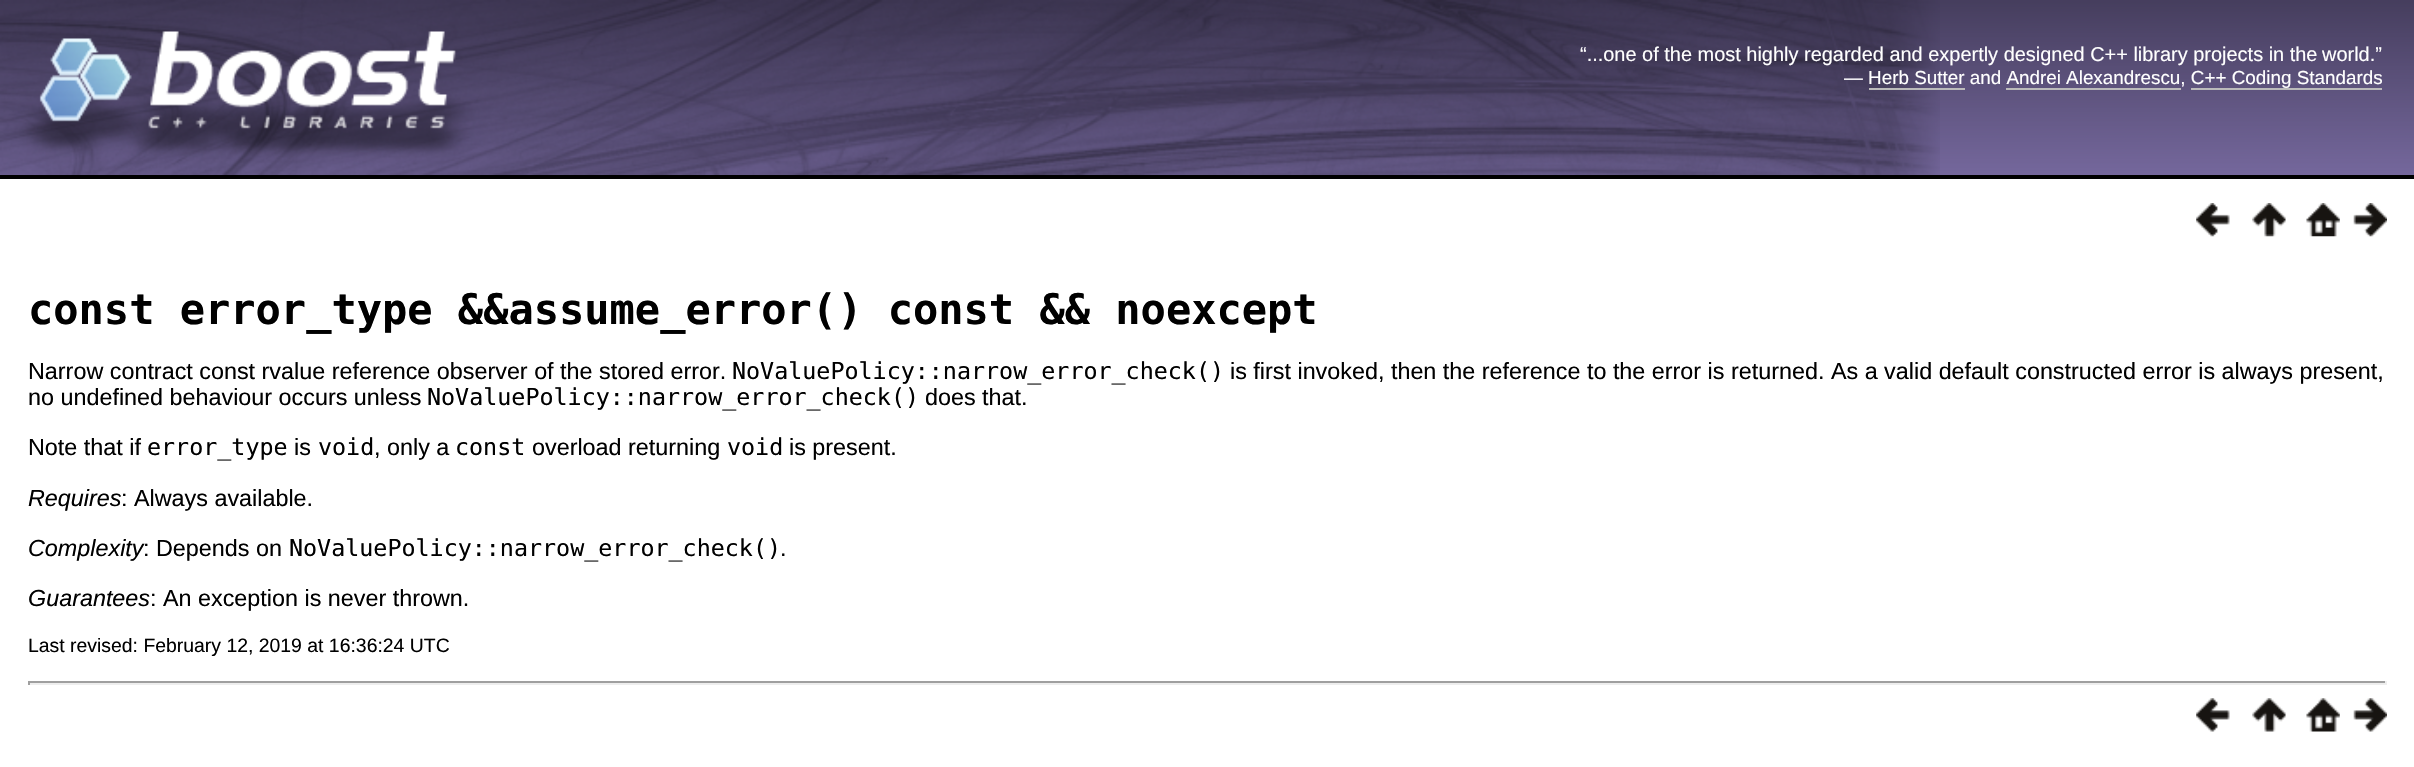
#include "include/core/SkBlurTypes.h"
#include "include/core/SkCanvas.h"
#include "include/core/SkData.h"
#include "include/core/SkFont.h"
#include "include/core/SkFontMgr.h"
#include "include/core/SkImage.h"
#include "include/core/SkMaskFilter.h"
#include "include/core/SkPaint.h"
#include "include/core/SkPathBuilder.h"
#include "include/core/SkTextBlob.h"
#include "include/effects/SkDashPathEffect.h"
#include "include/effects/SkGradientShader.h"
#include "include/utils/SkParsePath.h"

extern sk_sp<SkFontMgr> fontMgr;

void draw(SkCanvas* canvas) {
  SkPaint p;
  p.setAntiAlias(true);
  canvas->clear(SK_ColorWHITE);
  canvas->drawImageRect(SkImages::DeferredFromEncodedData(SkData::MakeFromFileName("images/1.png")), SkRect::MakeLTRB(1940, 0, 2414, 175), SkSamplingOptions());
  p.setColor(SK_ColorBLACK);
  canvas->drawRect(SkRect::MakeLTRB(0, 175, 2414, 179), p);
  canvas->drawImageRect(SkImages::DeferredFromEncodedData(SkData::MakeFromFileName("images/2.png")), SkRect::MakeLTRB(0, 0, 1940, 175), SkSamplingOptions());
  p.setColor(SkColorSetRGB(187, 187, 187));
  canvas->drawRect(SkRect::MakeLTRB(1869, 88, 1965, 90), p);
  canvas->drawRect(SkRect::MakeLTRB(2006, 88, 2181, 90), p);
  canvas->drawRect(SkRect::MakeLTRB(2191, 88, 2382, 90), p);
  canvas->drawImageRect(SkImages::DeferredFromEncodedData(SkData::MakeFromFileName("images/3.png")), SkRect::MakeLTRB(2196, 203, 2230, 237), SkSamplingOptions());
  canvas->drawImageRect(SkImages::DeferredFromEncodedData(SkData::MakeFromFileName("images/4.png")), SkRect::MakeLTRB(2252, 203, 2286, 237), SkSamplingOptions());
  canvas->drawImageRect(SkImages::DeferredFromEncodedData(SkData::MakeFromFileName("images/5.png")), SkRect::MakeLTRB(2306, 203, 2340, 237), SkSamplingOptions());
  canvas->drawImageRect(SkImages::DeferredFromEncodedData(SkData::MakeFromFileName("images/6.png")), SkRect::MakeLTRB(2353, 203, 2387, 237), SkSamplingOptions());
  p.setColor(SkColorSetRGB(159, 159, 159));
  canvas->drawRect(SkRect::MakeLTRB(28, 681, 2387, 683), p);
  p.setColor(SkColorSetRGB(238, 238, 238));
  canvas->drawRect(SkRect::MakeLTRB(2385, 681, 2387, 685), p);
  canvas->drawRect(SkRect::MakeLTRB(28, 683, 2387, 685), p);
  p.setColor(SkColorSetRGB(159, 159, 159));
  canvas->drawRect(SkRect::MakeLTRB(28, 681, 30, 685), p);
  canvas->drawImageRect(SkImages::DeferredFromEncodedData(SkData::MakeFromFileName("images/7.png")), SkRect::MakeLTRB(2196, 698, 2230, 732), SkSamplingOptions());
  canvas->drawImageRect(SkImages::DeferredFromEncodedData(SkData::MakeFromFileName("images/8.png")), SkRect::MakeLTRB(2252, 698, 2286, 732), SkSamplingOptions());
  canvas->drawImageRect(SkImages::DeferredFromEncodedData(SkData::MakeFromFileName("images/9.png")), SkRect::MakeLTRB(2306, 698, 2340, 732), SkSamplingOptions());
  canvas->drawImageRect(SkImages::DeferredFromEncodedData(SkData::MakeFromFileName("images/10.png")), SkRect::MakeLTRB(2353, 698, 2387, 732), SkSamplingOptions());
  SkFont font1(fontMgr->matchFamilyStyle("Liberation Sans", SkFontStyle::Normal()), 19.95f);
  font1.setSubpixel(true);
  p.setColor(SK_ColorWHITE);
  canvas->drawString("“...one of the most highly regarded and expertly designed C++ library projects in the", 1580, 61, font1, p);
  canvas->drawString("world.”", 2322, 61, font1, p);
  SkFont font2(fontMgr->matchFamilyStyle("Liberation Sans", SkFontStyle::Normal()), 18.85f);
  font2.setSubpixel(true);
  canvas->drawString("— Herb Sutter and Andrei Alexandrescu, C++ Coding Standards", 1844, 84, font2, p);
  SkFont font3(fontMgr->matchFamilyStyle("DejaVu Sans Mono", SkFontStyle::Bold()), 42);
  font3.setSubpixel(true);
  p.setColor(SK_ColorBLACK);
  canvas->drawString("const error_type &&assume_error() const && noexcept", 28, 324, font3, p);
  SkFont font4(fontMgr->matchFamilyStyle("Liberation Sans", SkFontStyle::Normal()), 23.35f);
  font4.setSubpixel(true);
  canvas->drawString("Narrow contract const rvalue reference observer of the stored error.", 28, 379, font4, p);
  SkFont font5(fontMgr->matchFamilyStyle("DejaVu Sans Mono", SkFontStyle::Normal()), 23.35f);
  font5.setSubpixel(true);
  canvas->drawString("NoValuePolicy::narrow_error_check()", 732, 379, font5, p);
  canvas->drawString("is first invoked, then the reference to the error is returned. As a valid default constructed error is always present,", 1230, 379, font4, p);
  canvas->drawString("no undefined behaviour occurs unless", 28, 405, font4, p);
  canvas->drawString("NoValuePolicy::narrow_error_check()", 427, 405, font5, p);
  canvas->drawString("does that.", 925, 405, font4, p);
  canvas->drawString("Note that if", 28, 455, font4, p);
  canvas->drawString("error_type", 147, 455, font5, p);
  canvas->drawString("is", 294, 455, font4, p);
  canvas->drawString("void", 318, 455, font5, p);
  canvas->drawString(", only a", 374, 455, font4, p);
  canvas->drawString("const", 455, 455, font5, p);
  canvas->drawString("overload returning", 532, 455, font4, p);
  canvas->drawString("void", 727, 455, font5, p);
  canvas->drawString("is present.", 789, 455, font4, p);
  SkFont font6(fontMgr->matchFamilyStyle("Liberation Sans", SkFontStyle::Italic()), 23.35f);
  font6.setSubpixel(true);
  canvas->drawString("Requires", 28, 506, font6, p);
  canvas->drawString(": Always available.", 121, 506, font4, p);
  canvas->drawString("Complexity", 28, 556, font6, p);
  canvas->drawString(": Depends on", 143, 556, font4, p);
  canvas->drawString("NoValuePolicy::narrow_error_check()", 289, 556, font5, p);
  canvas->drawString(".", 780, 556, font4, p);
  canvas->drawString("Guarantees", 28, 606, font6, p);
  canvas->drawString(": An exception is never thrown.", 150, 606, font4, p);
  SkFont font7(fontMgr->matchFamilyStyle("Liberation Sans", SkFontStyle::Normal()), 19.4f);
  font7.setSubpixel(true);
  canvas->drawString("Last revised: February 12, 2019 at 16:36:24 UTC", 28, 652, font7, p);
}
